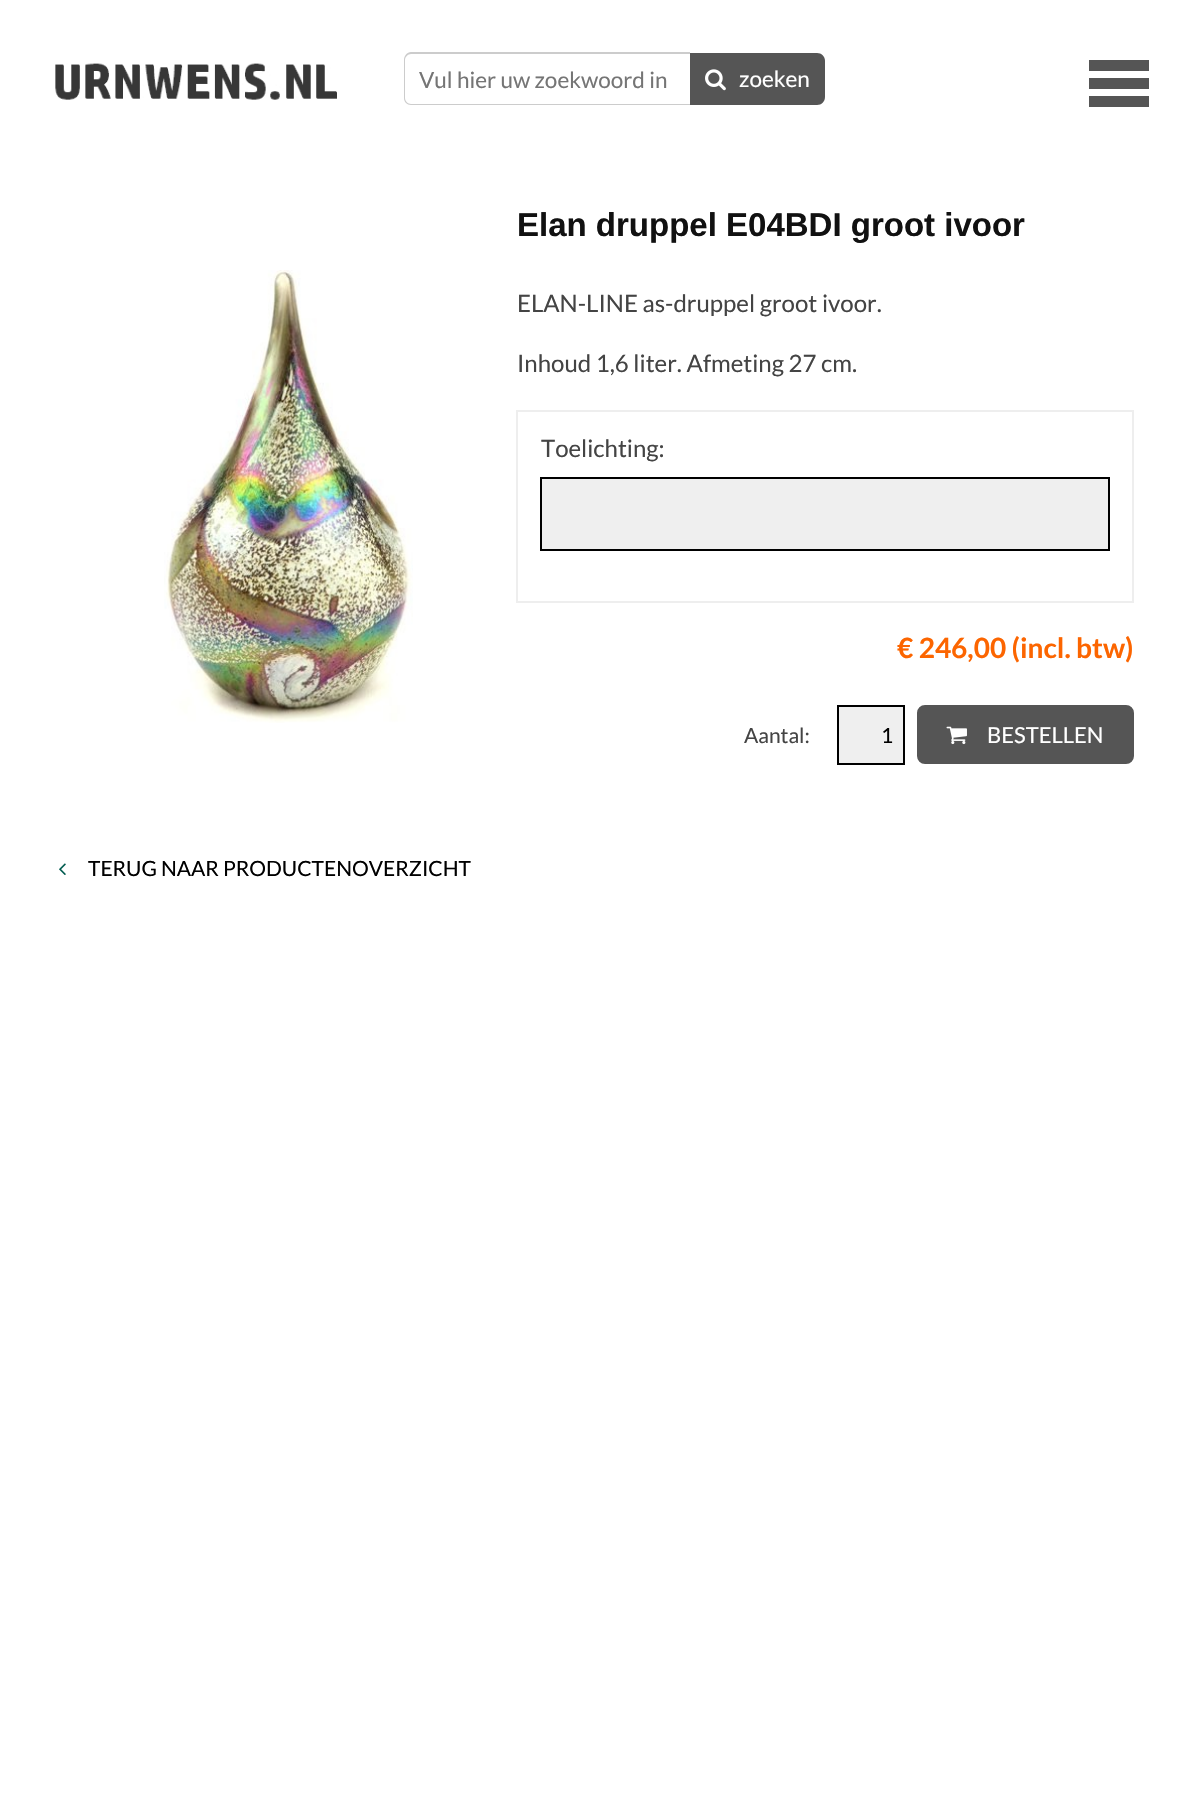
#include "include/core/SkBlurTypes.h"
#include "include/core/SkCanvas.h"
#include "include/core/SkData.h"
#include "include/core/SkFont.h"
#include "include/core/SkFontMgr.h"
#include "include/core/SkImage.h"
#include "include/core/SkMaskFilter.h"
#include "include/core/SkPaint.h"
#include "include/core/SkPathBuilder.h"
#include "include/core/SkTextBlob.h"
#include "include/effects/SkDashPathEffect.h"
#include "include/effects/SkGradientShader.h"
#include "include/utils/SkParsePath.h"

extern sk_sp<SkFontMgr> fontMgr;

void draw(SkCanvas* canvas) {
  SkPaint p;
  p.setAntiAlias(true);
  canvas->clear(SK_ColorWHITE);
  canvas->drawImageRect(SkImages::DeferredFromEncodedData(SkData::MakeFromFileName("images/1.png")), SkRect::MakeLTRB(55, 63, 337, 100), SkSamplingOptions());
  p.setColor(SkColorSetRGB(204, 204, 204));
  canvas->drawPath(SkPathBuilder(SkPathFillType::kEvenOdd).moveTo(411, 52).lineTo(690, 52).lineTo(690, 105).lineTo(411, 105).cubicTo(407, 105, 404, 102, 404, 98).lineTo(404, 60).cubicTo(404, 56, 407, 52, 411, 52).close().moveTo(411, 54).lineTo(690, 54).lineTo(690, 104).lineTo(411, 104).cubicTo(408, 104, 405, 101, 405, 98).lineTo(405, 60).cubicTo(405, 57, 408, 54, 411, 54).close().detach(), p);
  p.setColor(SkColorSetRGB(85, 85, 85));
  canvas->drawPath(SkPathBuilder().moveTo(690, 53).lineTo(817, 53).cubicTo(821.5f, 53, 825, 56.5f, 825, 61).lineTo(825, 97).cubicTo(825, 101.5f, 821.5f, 105, 817, 105).lineTo(690, 105).close().detach(), p);
  canvas->drawImageRect(SkImages::DeferredFromEncodedData(SkData::MakeFromFileName("images/2.png")), SkRect::MakeLTRB(705, 69, 726, 91), SkSamplingOptions());
  canvas->drawRect(SkRect::MakeLTRB(1089, 60, 1149, 71), p);
  canvas->drawRect(SkRect::MakeLTRB(1089, 78, 1149, 89), p);
  canvas->drawRect(SkRect::MakeLTRB(1089, 96, 1149, 107), p);
  p.setStyle(SkPaint::kStroke_Style);
  p.setStrokeWidth(2);
  p.setColor(SkColorSetRGB(238, 238, 238));
  canvas->drawRect(SkRect::MakeLTRB(517, 411, 1133, 602), p);
  p.setStyle(SkPaint::kFill_Style);
  p.setColor(SkColorSetRGB(239, 239, 239));
  canvas->drawRect(SkRect::MakeLTRB(541, 478, 1109, 550), p);
  p.setStyle(SkPaint::kStroke_Style);
  p.setColor(SK_ColorBLACK);
  canvas->drawRect(SkRect::MakeLTRB(541, 478, 1109, 550), p);
  p.setStyle(SkPaint::kFill_Style);
  p.setColor(SkColorSetRGB(239, 239, 239));
  canvas->drawRect(SkRect::MakeLTRB(838, 706, 904, 764), p);
  p.setStyle(SkPaint::kStroke_Style);
  p.setColor(SK_ColorBLACK);
  canvas->drawRect(SkRect::MakeLTRB(838, 706, 904, 764), p);
  p.setStyle(SkPaint::kFill_Style);
  p.setColor(SkColorSetRGB(85, 85, 85));
  canvas->drawRoundRect(SkRect::MakeLTRB(918, 706, 1133, 763), 7, 7, p);
  p.setStyle(SkPaint::kStroke_Style);
  canvas->drawRoundRect(SkRect::MakeLTRB(918, 706, 1133, 763), 7, 7, p);
  canvas->drawImageRect(SkImages::DeferredFromEncodedData(SkData::MakeFromFileName("images/3.png")), SkRect::MakeLTRB(946, 726, 967, 745), SkSamplingOptions());
  canvas->drawImageRect(SkImages::DeferredFromEncodedData(SkData::MakeFromFileName("images/4.png")), SkRect::MakeLTRB(164, 270, 413, 723), SkSamplingOptions());
  canvas->drawImageRect(SkImages::DeferredFromEncodedData(SkData::MakeFromFileName("images/5.png")), SkRect::MakeLTRB(59, 863, 66, 875), SkSamplingOptions());
  SkFont font1(fontMgr->matchFamilyStyle("Lato", SkFontStyle::Normal()), 22.5f);
  font1.setSubpixel(true);
  p.setStyle(SkPaint::kFill_Style);
  p.setColor(SkColorSetRGB(117, 117, 117));
  canvas->drawString("Vul hier uw zoekwoord in", 419, 88, font1, p);
  p.setColor(SK_ColorWHITE);
  canvas->drawString("zoeken", 739, 87, font1, p);
  SkFont font2(fontMgr->matchFamilyStyle("Liberation Sans", SkFontStyle::Bold()), 33);
  font2.setSubpixel(true);
  p.setColor(SkColorSetRGB(17, 17, 17));
  canvas->drawString("Elan druppel E04BDI groot ivoor", 517, 236, font2, p);
  SkFont font3(fontMgr->matchFamilyStyle("Lato", SkFontStyle::Normal()), 24);
  font3.setSubpixel(true);
  p.setColor(SkColorSetRGB(68, 68, 68));
  canvas->drawString("ELAN-LINE as-druppel groot ivoor.", 517, 312, font3, p);
  canvas->drawString("Inhoud 1,6 liter. Afmeting 27 cm.", 517, 372, font3, p);
  canvas->drawString("Toelichting:", 541, 457, font3, p);
  SkFont font4(fontMgr->matchFamilyStyle("Lato", SkFontStyle::Bold()), 28);
  font4.setSubpixel(true);
  p.setColor(SkColorSetRGB(252, 101, 0));
  canvas->drawString("€ 246,00 (incl. btw)", 897, 658, font4, p);
  SkFont font5(fontMgr->matchFamilyStyle("Lato", SkFontStyle::Normal()), 21);
  font5.setSubpixel(true);
  p.setColor(SkColorSetRGB(68, 68, 68));
  canvas->drawString("Aantal:", 744, 743, font5, p);
  p.setColor(SK_ColorBLACK);
  canvas->drawString("1", 881, 743, font5, p);
  SkFont font6(fontMgr->matchFamilyStyle("Lato", SkFontStyle::Normal()), 22);
  font6.setSubpixel(true);
  p.setColor(SK_ColorWHITE);
  canvas->drawString("BESTELLEN", 987, 743, font6, p);
  p.setColor(SK_ColorBLACK);
  canvas->drawString("TERUG NAAR PRODUCTENOVERZICHT", 88, 876, font5, p);
}
